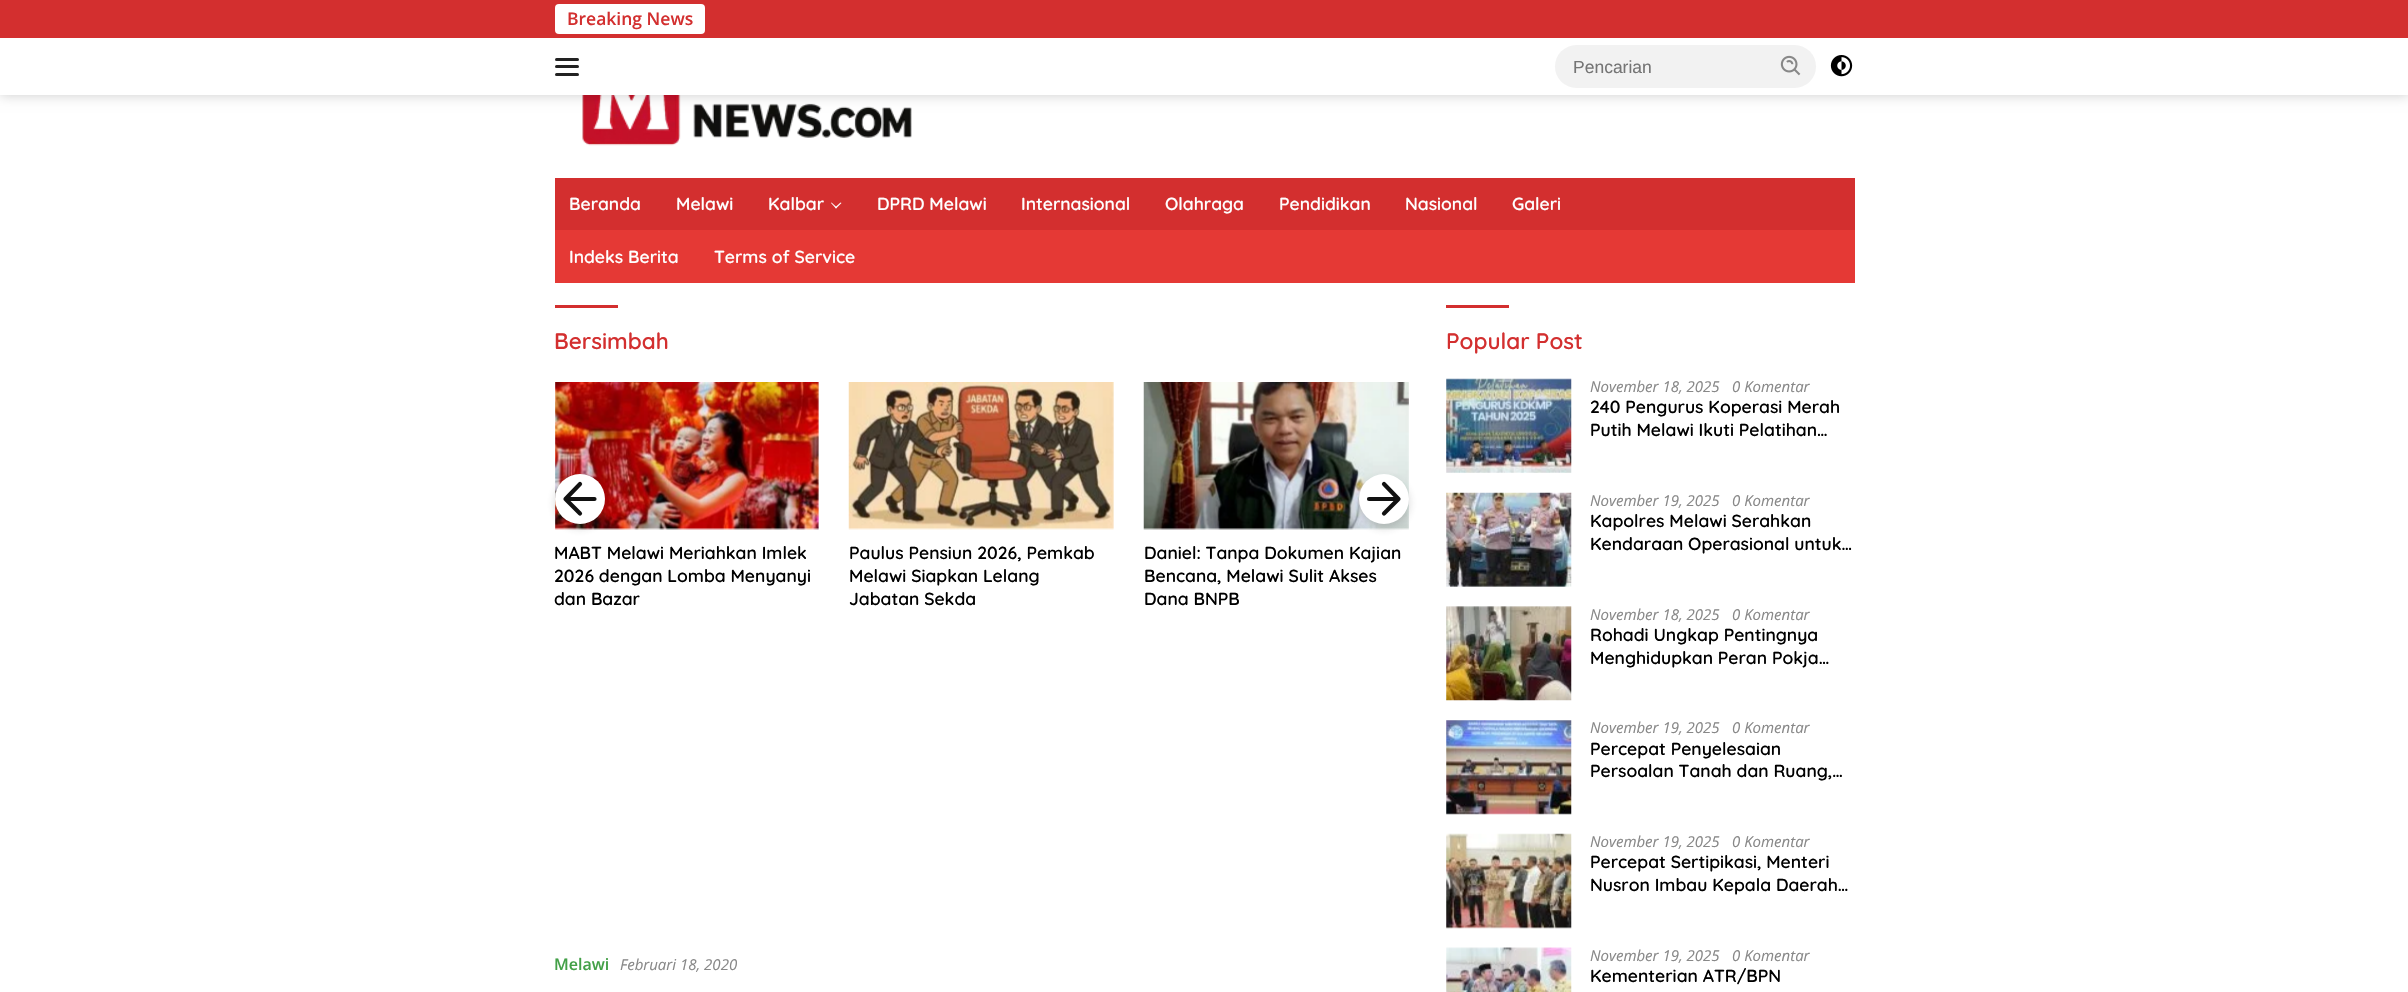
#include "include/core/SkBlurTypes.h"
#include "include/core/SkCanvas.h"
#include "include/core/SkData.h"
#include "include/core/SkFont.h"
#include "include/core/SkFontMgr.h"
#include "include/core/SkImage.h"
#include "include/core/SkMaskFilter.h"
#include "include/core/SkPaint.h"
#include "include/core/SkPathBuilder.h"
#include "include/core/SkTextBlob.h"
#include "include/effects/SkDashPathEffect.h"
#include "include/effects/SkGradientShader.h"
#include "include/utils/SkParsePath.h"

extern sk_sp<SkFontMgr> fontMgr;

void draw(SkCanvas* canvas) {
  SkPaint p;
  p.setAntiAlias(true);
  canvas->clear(SK_ColorWHITE);
  canvas->drawImageRect(SkImages::DeferredFromEncodedData(SkData::MakeFromFileName("images/3.png")), SkRect::MakeLTRB(582, 95, 912, 146), SkSamplingOptions());
  p.setColor(SkColorSetARGB(51, 0, 0, 0));
  p.setMaskFilter(SkMaskFilter::MakeBlur(kNormal_SkBlurStyle, 6));
  canvas->drawRect(SkRect::MakeLTRB(0, 0, 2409, 95), p);
  p.setMaskFilter(nullptr);
  p.setColor(SK_ColorWHITE);
  canvas->drawRect(SkRect::MakeLTRB(0, 38, 2408, 95), p);
  p.setColor(SkColorSetRGB(211, 47, 47));
  canvas->drawRect(SkRect::MakeLTRB(0, 0, 2408, 38), p);
  p.setColor(SK_ColorWHITE);
  canvas->drawRoundRect(SkRect::MakeLTRB(555, 4, 705, 34), 4, 4, p);
  p.setColor(SkColorSetRGB(34, 34, 34));
  canvas->drawRoundRect(SkRect::MakeLTRB(555, 58, 579, 61), 1.5f, 1.5f, p);
  canvas->drawRoundRect(SkRect::MakeLTRB(555, 65, 579, 68), 1.5f, 1.5f, p);
  canvas->drawRoundRect(SkRect::MakeLTRB(555, 73, 579, 76), 1.5f, 1.5f, p);
  p.setColor(SkColorSetRGB(242, 242, 242));
  canvas->drawRoundRect(SkRect::MakeLTRB(1555, 45, 1816, 88), 21.5f, 21.5f, p);
  canvas->drawImageRect(SkImages::DeferredFromEncodedData(SkData::MakeFromFileName("images/1.png")), SkRect::MakeLTRB(1780, 55, 1801, 76), SkSamplingOptions());
  canvas->drawImageRect(SkImages::DeferredFromEncodedData(SkData::MakeFromFileName("images/2.png")), SkRect::MakeLTRB(1830, 55, 1853, 77), SkSamplingOptions());
  p.setColor(SkColorSetRGB(229, 57, 53));
  canvas->drawRect(SkRect::MakeLTRB(555, 230, 1855, 283), p);
  p.setColor(SkColorSetRGB(211, 47, 47));
  canvas->drawRect(SkRect::MakeLTRB(555, 178, 1855, 230), p);
  p.setColor(SK_ColorWHITE);
  canvas->drawPath(SkPathBuilder().moveTo(840.5f, 202.5f).lineTo(841.5f, 203).lineTo(836, 208.5f).lineTo(835, 207.5f).close().detach(), p);
  canvas->drawPath(SkPathBuilder().moveTo(831.5f, 202.5f).lineTo(837, 207.5f).lineTo(836, 208.5f).lineTo(831, 203).close().detach(), p);
  p.setColor(SkColorSetRGB(211, 47, 47));
  canvas->drawRect(SkRect::MakeLTRB(555, 305, 618, 308), p);
  canvas->drawImageRect(SkImages::DeferredFromEncodedData(SkData::MakeFromFileName("images/4.png")), SkRect::MakeLTRB(555, 382, 819, 530), SkSamplingOptions());
  p.setColor(SkColorSetARGB(51, 51, 51, 51));
  p.setMaskFilter(SkMaskFilter::MakeBlur(kNormal_SkBlurStyle, 4));
  canvas->drawRoundRect(SkRect::MakeLTRB(555, 478, 605, 528), 25, 25, p);
  p.setMaskFilter(nullptr);
  p.setColor(SK_ColorWHITE);
  canvas->drawCircle(580, 499, 25, p);
  p.setStyle(SkPaint::kStroke_Style);
  p.setStrokeWidth(4.2f);
  p.setStrokeCap(SkPaint::kRound_Cap);
  p.setStrokeJoin(SkPaint::kRound_Join);
  p.setColor(SkColorSetRGB(17, 17, 17));
  canvas->drawPath(SkPathBuilder().moveTo(594.5f, 499).lineTo(565.5f, 499).moveTo(580, 513.5f).lineTo(565.5f, 499).lineTo(580, 484).detach(), p);
  canvas->drawImageRect(SkImages::DeferredFromEncodedData(SkData::MakeFromFileName("images/6.png")), SkRect::MakeLTRB(1143, 382, 1409, 530), SkSamplingOptions());
  p.setStyle(SkPaint::kFill_Style);
  p.setColor(SkColorSetARGB(51, 51, 51, 51));
  p.setMaskFilter(SkMaskFilter::MakeBlur(kNormal_SkBlurStyle, 4));
  canvas->drawRoundRect(SkRect::MakeLTRB(1359, 478, 1409, 528), 25, 25, p);
  p.setMaskFilter(nullptr);
  p.setColor(SK_ColorWHITE);
  canvas->drawCircle(1384, 499, 25, p);
  p.setStyle(SkPaint::kStroke_Style);
  p.setColor(SkColorSetRGB(17, 17, 17));
  canvas->drawPath(SkPathBuilder().moveTo(1369, 499).lineTo(1398.5f, 499).moveTo(1384, 484).lineTo(1398.5f, 499).lineTo(1384, 513.5f).detach(), p);
  canvas->drawImageRect(SkImages::DeferredFromEncodedData(SkData::MakeFromFileName("images/5.png")), SkRect::MakeLTRB(848, 382, 1114, 530), SkSamplingOptions());
  p.setStyle(SkPaint::kFill_Style);
  p.setColor(SkColorSetRGB(211, 47, 47));
  canvas->drawRect(SkRect::MakeLTRB(1446, 305, 1509, 308), p);
  canvas->drawImageRect(SkImages::DeferredFromEncodedData(SkData::MakeFromFileName("images/7.png")), SkRect::MakeLTRB(1446, 378, 1572, 473), SkSamplingOptions());
  canvas->drawImageRect(SkImages::DeferredFromEncodedData(SkData::MakeFromFileName("images/8.png")), SkRect::MakeLTRB(1446, 492, 1572, 587), SkSamplingOptions());
  canvas->drawImageRect(SkImages::DeferredFromEncodedData(SkData::MakeFromFileName("images/9.png")), SkRect::MakeLTRB(1446, 606, 1572, 701), SkSamplingOptions());
  canvas->drawImageRect(SkImages::DeferredFromEncodedData(SkData::MakeFromFileName("images/10.png")), SkRect::MakeLTRB(1446, 720, 1572, 815), SkSamplingOptions());
  canvas->drawImageRect(SkImages::DeferredFromEncodedData(SkData::MakeFromFileName("images/11.png")), SkRect::MakeLTRB(1446, 833, 1572, 929), SkSamplingOptions());
  canvas->drawImageRect(SkImages::DeferredFromEncodedData(SkData::MakeFromFileName("images/12.png")), SkRect::MakeLTRB(1446, 947, 1572, 992), SkSamplingOptions());
  SkFont font1(fontMgr->matchFamilyStyle("Open Sans", SkFontStyle(600, SkFontStyle::kNormal_Width, SkFontStyle::kUpright_Slant)), 17.5f);
  font1.setSubpixel(true);
  canvas->drawString("Breaking News", 567, 25, font1, p);
  SkFont font2(fontMgr->matchFamilyStyle("Liberation Sans", SkFontStyle::Normal()), 17.5f);
  font2.setSubpixel(true);
  p.setColor(SkColorSetRGB(117, 117, 117));
  canvas->drawString("Pencarian", 1573, 73, font2, p);
  SkFont font3(fontMgr->matchFamilyStyle("Quicksand", SkFontStyle(600, SkFontStyle::kNormal_Width, SkFontStyle::kUpright_Slant)), 17.5f);
  font3.setSubpixel(true);
  p.setColor(SK_ColorWHITE);
  canvas->drawString("Beranda", 569, 210, font3, p);
  canvas->drawString("Melawi", 676, 210, font3, p);
  canvas->drawString("Kalbar", 768, 210, font3, p);
  canvas->drawString("DPRD Melawi", 877, 210, font3, p);
  canvas->drawString("Internasional", 1021, 210, font3, p);
  canvas->drawString("Olahraga", 1165, 210, font3, p);
  canvas->drawString("Pendidikan", 1279, 210, font3, p);
  canvas->drawString("Nasional", 1405, 210, font3, p);
  canvas->drawString("Galeri", 1512, 210, font3, p);
  canvas->drawString("Indeks Berita", 569, 263, font3, p);
  canvas->drawString("Terms of Service", 714, 263, font3, p);
  SkFont font4(fontMgr->matchFamilyStyle("Quicksand", SkFontStyle(600, SkFontStyle::kNormal_Width, SkFontStyle::kUpright_Slant)), 22.5f);
  font4.setSubpixel(true);
  p.setColor(SkColorSetRGB(211, 47, 47));
  canvas->drawString("Bersimbah", 554, 349, font4, p);
  p.setColor(SK_ColorBLACK);
  canvas->drawString("MABT Melawi Meriahkan Imlek", 554, 559, font3, p);
  canvas->drawString("2026 dengan Lomba Menyanyi", 554, 582, font3, p);
  canvas->drawString("dan Bazar", 554, 605, font3, p);
  canvas->drawString("Paulus Pensiun 2026, Pemkab", 849, 559, font3, p);
  canvas->drawString("Melawi Siapkan Lelang", 849, 582, font3, p);
  canvas->drawString("Jabatan Sekda", 849, 605, font3, p);
  canvas->drawString("Daniel: Tanpa Dokumen Kajian", 1144, 559, font3, p);
  canvas->drawString("Bencana, Melawi Sulit Akses", 1144, 582, font3, p);
  canvas->drawString("Dana BNPB", 1144, 605, font3, p);
  SkFont font5(fontMgr->matchFamilyStyle("Open Sans", SkFontStyle(600, SkFontStyle::kNormal_Width, SkFontStyle::kUpright_Slant)), 16);
  font5.setSubpixel(true);
  p.setColor(SkColorSetRGB(67, 160, 71));
  canvas->drawString("Melawi", 554, 970, font5, p);
  SkFont font6(fontMgr->matchFamilyStyle("Open Sans", SkFontStyle::Italic()), 15);
  font6.setSubpixel(true);
  p.setColor(SkColorSetRGB(136, 136, 136));
  canvas->drawString("Februari 18, 2020", 620, 970, font6, p);
  p.setColor(SkColorSetRGB(211, 47, 47));
  canvas->drawString("Popular Post", 1446, 349, font4, p);
  p.setColor(SkColorSetRGB(136, 136, 136));
  canvas->drawString("November 18, 2025", 1590, 392, font6, p);
  canvas->drawString("0 Komentar", 1732, 392, font6, p);
  p.setColor(SK_ColorBLACK);
  canvas->drawString("240 Pengurus Koperasi Merah", 1590, 413, font3, p);
  canvas->drawString("Putih Melawi Ikuti Pelatihan…", 1590, 436, font3, p);
  p.setColor(SkColorSetRGB(136, 136, 136));
  canvas->drawString("November 19, 2025", 1590, 506, font6, p);
  canvas->drawString("0 Komentar", 1732, 506, font6, p);
  p.setColor(SK_ColorBLACK);
  canvas->drawString("Kapolres Melawi Serahkan", 1590, 527, font3, p);
  canvas->drawString("Kendaraan Operasional untuk…", 1590, 550, font3, p);
  p.setColor(SkColorSetRGB(136, 136, 136));
  canvas->drawString("November 18, 2025", 1590, 620, font6, p);
  canvas->drawString("0 Komentar", 1732, 620, font6, p);
  p.setColor(SK_ColorBLACK);
  canvas->drawString("Rohadi Ungkap Pentingnya", 1590, 641, font3, p);
  canvas->drawString("Menghidupkan Peran Pokja…", 1590, 664, font3, p);
  p.setColor(SkColorSetRGB(136, 136, 136));
  canvas->drawString("November 19, 2025", 1590, 733, font6, p);
  canvas->drawString("0 Komentar", 1732, 733, font6, p);
  p.setColor(SK_ColorBLACK);
  canvas->drawString("Percepat Penyelesaian", 1590, 755, font3, p);
  canvas->drawString("Persoalan Tanah dan Ruang,…", 1590, 777, font3, p);
  p.setColor(SkColorSetRGB(136, 136, 136));
  canvas->drawString("November 19, 2025", 1590, 847, font6, p);
  canvas->drawString("0 Komentar", 1732, 847, font6, p);
  p.setColor(SK_ColorBLACK);
  canvas->drawString("Percepat Sertipikasi, Menteri", 1590, 868, font3, p);
  canvas->drawString("Nusron Imbau Kepala Daerah…", 1590, 891, font3, p);
  p.setColor(SkColorSetRGB(136, 136, 136));
  canvas->drawString("November 19, 2025", 1590, 961, font6, p);
  canvas->drawString("0 Komentar", 1732, 961, font6, p);
  p.setColor(SK_ColorBLACK);
  canvas->drawString("Kementerian ATR/BPN", 1590, 982, font3, p);
}
